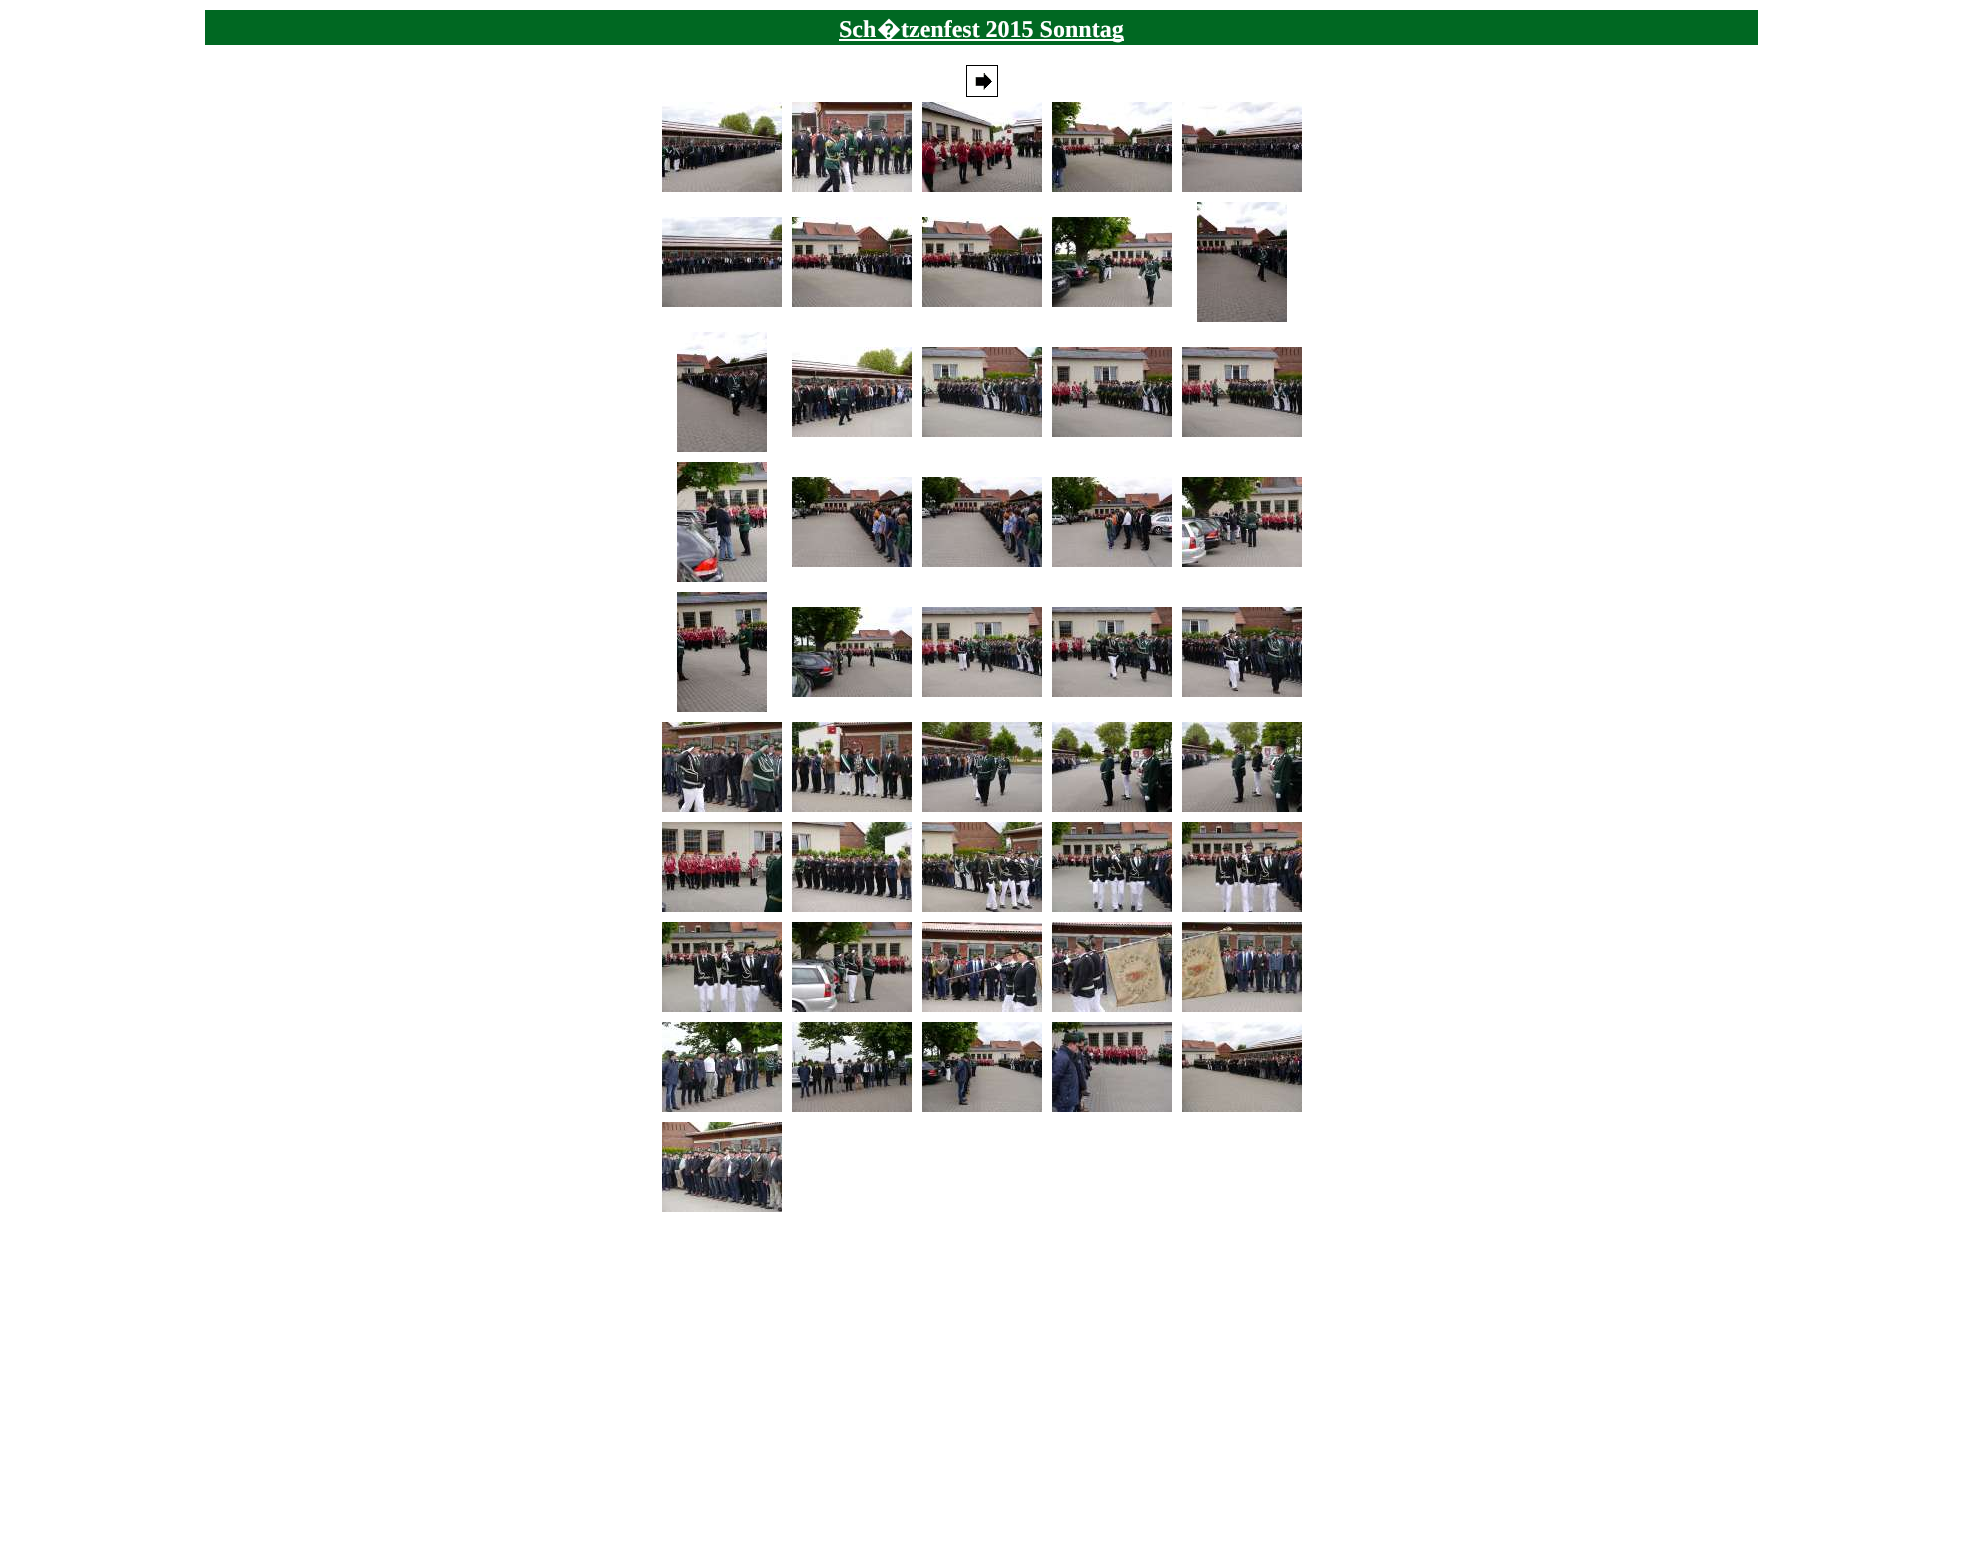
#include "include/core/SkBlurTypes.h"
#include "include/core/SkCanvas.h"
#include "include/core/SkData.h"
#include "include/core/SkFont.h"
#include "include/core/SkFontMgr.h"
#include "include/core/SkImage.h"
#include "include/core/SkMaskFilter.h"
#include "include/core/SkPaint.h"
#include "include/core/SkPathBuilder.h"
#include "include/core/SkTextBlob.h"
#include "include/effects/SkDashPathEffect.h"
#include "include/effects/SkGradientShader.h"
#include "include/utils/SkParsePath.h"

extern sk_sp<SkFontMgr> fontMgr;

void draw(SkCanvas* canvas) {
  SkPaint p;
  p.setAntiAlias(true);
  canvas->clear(SK_ColorWHITE);
  p.setColor(SkColorSetRGB(0, 104, 34));
  canvas->drawRect(SkRect::MakeLTRB(205, 10, 1758, 45), p);
  p.setColor(SK_ColorWHITE);
  canvas->drawRect(SkRect::MakeLTRB(839, 39, 1124, 41), p);
  canvas->drawImageRect(SkImages::DeferredFromEncodedData(SkData::MakeFromFileName("images/1.png")), SkRect::MakeLTRB(966, 65, 998, 97), SkSamplingOptions());
  canvas->drawImageRect(SkImages::DeferredFromEncodedData(SkData::MakeFromFileName("images/2.png")), SkRect::MakeLTRB(662, 102, 782, 192), SkSamplingOptions());
  canvas->drawImageRect(SkImages::DeferredFromEncodedData(SkData::MakeFromFileName("images/3.png")), SkRect::MakeLTRB(792, 102, 912, 192), SkSamplingOptions());
  canvas->drawImageRect(SkImages::DeferredFromEncodedData(SkData::MakeFromFileName("images/4.png")), SkRect::MakeLTRB(922, 102, 1042, 192), SkSamplingOptions());
  canvas->drawImageRect(SkImages::DeferredFromEncodedData(SkData::MakeFromFileName("images/5.png")), SkRect::MakeLTRB(1052, 102, 1172, 192), SkSamplingOptions());
  canvas->drawImageRect(SkImages::DeferredFromEncodedData(SkData::MakeFromFileName("images/6.png")), SkRect::MakeLTRB(1182, 102, 1302, 192), SkSamplingOptions());
  canvas->drawImageRect(SkImages::DeferredFromEncodedData(SkData::MakeFromFileName("images/7.png")), SkRect::MakeLTRB(662, 217, 782, 307), SkSamplingOptions());
  canvas->drawImageRect(SkImages::DeferredFromEncodedData(SkData::MakeFromFileName("images/8.png")), SkRect::MakeLTRB(792, 217, 912, 307), SkSamplingOptions());
  canvas->drawImageRect(SkImages::DeferredFromEncodedData(SkData::MakeFromFileName("images/9.png")), SkRect::MakeLTRB(922, 217, 1042, 307), SkSamplingOptions());
  canvas->drawImageRect(SkImages::DeferredFromEncodedData(SkData::MakeFromFileName("images/10.png")), SkRect::MakeLTRB(1052, 217, 1172, 307), SkSamplingOptions());
  canvas->drawImageRect(SkImages::DeferredFromEncodedData(SkData::MakeFromFileName("images/11.png")), SkRect::MakeLTRB(1197, 202, 1287, 322), SkSamplingOptions());
  canvas->drawImageRect(SkImages::DeferredFromEncodedData(SkData::MakeFromFileName("images/12.png")), SkRect::MakeLTRB(677, 332, 767, 452), SkSamplingOptions());
  canvas->drawImageRect(SkImages::DeferredFromEncodedData(SkData::MakeFromFileName("images/13.png")), SkRect::MakeLTRB(792, 347, 912, 437), SkSamplingOptions());
  canvas->drawImageRect(SkImages::DeferredFromEncodedData(SkData::MakeFromFileName("images/14.png")), SkRect::MakeLTRB(922, 347, 1042, 437), SkSamplingOptions());
  canvas->drawImageRect(SkImages::DeferredFromEncodedData(SkData::MakeFromFileName("images/15.png")), SkRect::MakeLTRB(1052, 347, 1172, 437), SkSamplingOptions());
  canvas->drawImageRect(SkImages::DeferredFromEncodedData(SkData::MakeFromFileName("images/16.png")), SkRect::MakeLTRB(1182, 347, 1302, 437), SkSamplingOptions());
  canvas->drawImageRect(SkImages::DeferredFromEncodedData(SkData::MakeFromFileName("images/17.png")), SkRect::MakeLTRB(677, 462, 767, 582), SkSamplingOptions());
  canvas->drawImageRect(SkImages::DeferredFromEncodedData(SkData::MakeFromFileName("images/18.png")), SkRect::MakeLTRB(792, 477, 912, 567), SkSamplingOptions());
  canvas->drawImageRect(SkImages::DeferredFromEncodedData(SkData::MakeFromFileName("images/19.png")), SkRect::MakeLTRB(922, 477, 1042, 567), SkSamplingOptions());
  canvas->drawImageRect(SkImages::DeferredFromEncodedData(SkData::MakeFromFileName("images/20.png")), SkRect::MakeLTRB(1052, 477, 1172, 567), SkSamplingOptions());
  canvas->drawImageRect(SkImages::DeferredFromEncodedData(SkData::MakeFromFileName("images/21.png")), SkRect::MakeLTRB(1182, 477, 1302, 567), SkSamplingOptions());
  canvas->drawImageRect(SkImages::DeferredFromEncodedData(SkData::MakeFromFileName("images/22.png")), SkRect::MakeLTRB(677, 592, 767, 712), SkSamplingOptions());
  canvas->drawImageRect(SkImages::DeferredFromEncodedData(SkData::MakeFromFileName("images/23.png")), SkRect::MakeLTRB(792, 607, 912, 697), SkSamplingOptions());
  canvas->drawImageRect(SkImages::DeferredFromEncodedData(SkData::MakeFromFileName("images/24.png")), SkRect::MakeLTRB(922, 607, 1042, 697), SkSamplingOptions());
  canvas->drawImageRect(SkImages::DeferredFromEncodedData(SkData::MakeFromFileName("images/25.png")), SkRect::MakeLTRB(1052, 607, 1172, 697), SkSamplingOptions());
  canvas->drawImageRect(SkImages::DeferredFromEncodedData(SkData::MakeFromFileName("images/26.png")), SkRect::MakeLTRB(1182, 607, 1302, 697), SkSamplingOptions());
  canvas->drawImageRect(SkImages::DeferredFromEncodedData(SkData::MakeFromFileName("images/27.png")), SkRect::MakeLTRB(662, 722, 782, 812), SkSamplingOptions());
  canvas->drawImageRect(SkImages::DeferredFromEncodedData(SkData::MakeFromFileName("images/28.png")), SkRect::MakeLTRB(792, 722, 912, 812), SkSamplingOptions());
  canvas->drawImageRect(SkImages::DeferredFromEncodedData(SkData::MakeFromFileName("images/29.png")), SkRect::MakeLTRB(922, 722, 1042, 812), SkSamplingOptions());
  canvas->drawImageRect(SkImages::DeferredFromEncodedData(SkData::MakeFromFileName("images/30.png")), SkRect::MakeLTRB(1052, 722, 1172, 812), SkSamplingOptions());
  canvas->drawImageRect(SkImages::DeferredFromEncodedData(SkData::MakeFromFileName("images/31.png")), SkRect::MakeLTRB(1182, 722, 1302, 812), SkSamplingOptions());
  canvas->drawImageRect(SkImages::DeferredFromEncodedData(SkData::MakeFromFileName("images/32.png")), SkRect::MakeLTRB(662, 822, 782, 912), SkSamplingOptions());
  canvas->drawImageRect(SkImages::DeferredFromEncodedData(SkData::MakeFromFileName("images/33.png")), SkRect::MakeLTRB(792, 822, 912, 912), SkSamplingOptions());
  canvas->drawImageRect(SkImages::DeferredFromEncodedData(SkData::MakeFromFileName("images/34.png")), SkRect::MakeLTRB(922, 822, 1042, 912), SkSamplingOptions());
  canvas->drawImageRect(SkImages::DeferredFromEncodedData(SkData::MakeFromFileName("images/35.png")), SkRect::MakeLTRB(1052, 822, 1172, 912), SkSamplingOptions());
  canvas->drawImageRect(SkImages::DeferredFromEncodedData(SkData::MakeFromFileName("images/36.png")), SkRect::MakeLTRB(1182, 822, 1302, 912), SkSamplingOptions());
  canvas->drawImageRect(SkImages::DeferredFromEncodedData(SkData::MakeFromFileName("images/37.png")), SkRect::MakeLTRB(662, 922, 782, 1012), SkSamplingOptions());
  canvas->drawImageRect(SkImages::DeferredFromEncodedData(SkData::MakeFromFileName("images/38.png")), SkRect::MakeLTRB(792, 922, 912, 1012), SkSamplingOptions());
  canvas->drawImageRect(SkImages::DeferredFromEncodedData(SkData::MakeFromFileName("images/39.png")), SkRect::MakeLTRB(922, 922, 1042, 1012), SkSamplingOptions());
  canvas->drawImageRect(SkImages::DeferredFromEncodedData(SkData::MakeFromFileName("images/40.png")), SkRect::MakeLTRB(1052, 922, 1172, 1012), SkSamplingOptions());
  canvas->drawImageRect(SkImages::DeferredFromEncodedData(SkData::MakeFromFileName("images/41.png")), SkRect::MakeLTRB(1182, 922, 1302, 1012), SkSamplingOptions());
  canvas->drawImageRect(SkImages::DeferredFromEncodedData(SkData::MakeFromFileName("images/42.png")), SkRect::MakeLTRB(662, 1022, 782, 1112), SkSamplingOptions());
  canvas->drawImageRect(SkImages::DeferredFromEncodedData(SkData::MakeFromFileName("images/43.png")), SkRect::MakeLTRB(792, 1022, 912, 1112), SkSamplingOptions());
  canvas->drawImageRect(SkImages::DeferredFromEncodedData(SkData::MakeFromFileName("images/44.png")), SkRect::MakeLTRB(922, 1022, 1042, 1112), SkSamplingOptions());
  canvas->drawImageRect(SkImages::DeferredFromEncodedData(SkData::MakeFromFileName("images/45.png")), SkRect::MakeLTRB(1052, 1022, 1172, 1112), SkSamplingOptions());
  canvas->drawImageRect(SkImages::DeferredFromEncodedData(SkData::MakeFromFileName("images/46.png")), SkRect::MakeLTRB(1182, 1022, 1302, 1112), SkSamplingOptions());
  canvas->drawImageRect(SkImages::DeferredFromEncodedData(SkData::MakeFromFileName("images/47.png")), SkRect::MakeLTRB(662, 1122, 782, 1212), SkSamplingOptions());
  SkFont font1(fontMgr->matchFamilyStyle("Liberation Serif", SkFontStyle::Bold()), 24);
  font1.setSubpixel(true);
  canvas->drawString("Sch", 839, 37, font1, p);
  SkFont font2(fontMgr->matchFamilyStyle("Noto Sans", SkFontStyle::Bold()), 24);
  font2.setSubpixel(true);
  canvas->drawString("�", 877, 37, font2, p);
  canvas->drawString("tzenfest 2015 Sonntag", 901, 37, font1, p);
}
